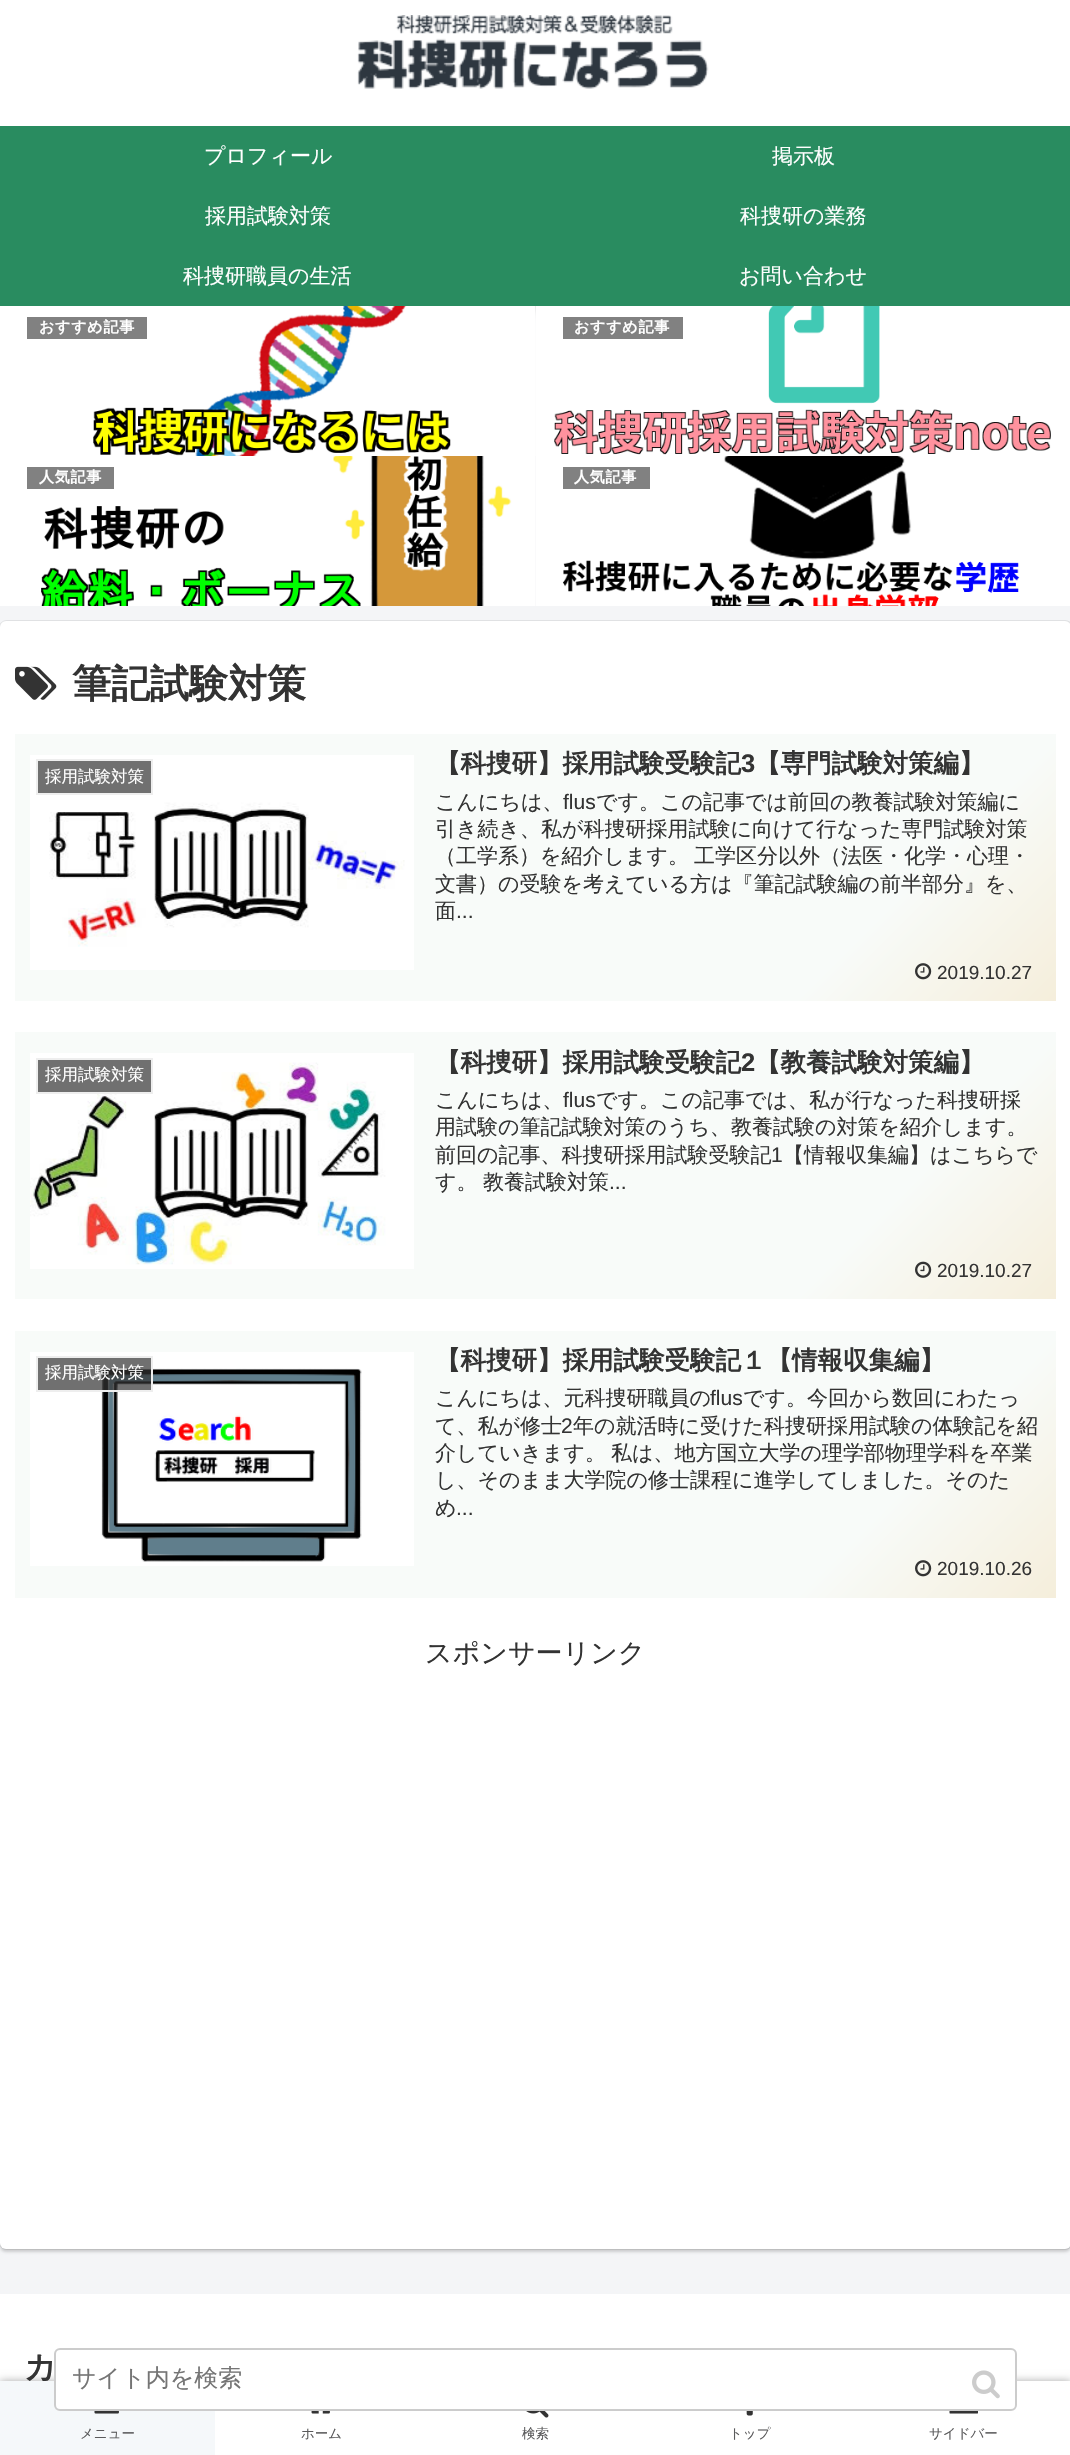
#include "include/core/SkBlurTypes.h"
#include "include/core/SkCanvas.h"
#include "include/core/SkData.h"
#include "include/core/SkFont.h"
#include "include/core/SkFontMgr.h"
#include "include/core/SkImage.h"
#include "include/core/SkMaskFilter.h"
#include "include/core/SkPaint.h"
#include "include/core/SkPathBuilder.h"
#include "include/core/SkTextBlob.h"
#include "include/effects/SkDashPathEffect.h"
#include "include/effects/SkGradientShader.h"
#include "include/utils/SkParsePath.h"

extern sk_sp<SkFontMgr> fontMgr;

void draw(SkCanvas* canvas) {
  SkPaint p;
  p.setAntiAlias(true);
  auto spacedText = [&](const char* s, float x, float y, const SkFont& font, const SkPaint& ink, float letter, float word) {
    std::vector<SkGlyphID> glyphs(font.countText(s, strlen(s), SkTextEncoding::kUTF8));
    std::vector<float> xs(glyphs.size());
    font.textToGlyphs(s, strlen(s), SkTextEncoding::kUTF8, glyphs);
    font.getXPos(glyphs, xs, x);
    float extra = 0;
    for (size_t i = 0; i < glyphs.size(); i++) {
      xs[i] += extra;
      extra += letter + word * (glyphs[i] == font.unicharToGlyph(' '));
    }
    canvas->drawTextBlob(SkTextBlob::MakeFromPosHGlyphs(glyphs, xs, y, font), 0, 0, ink);
  };
  canvas->clear(SkColorSetRGB(244, 245, 247));
  p.setColor(SkColorSetARGB(46, 0, 0, 0));
  p.setMaskFilter(SkMaskFilter::MakeBlur(kNormal_SkBlurStyle, 7.5f));
  canvas->drawRect(SkRect::MakeLTRB(5, 14, 1067, 311), p);
  p.setMaskFilter(nullptr);
  p.setColor(SkColorSetARGB(61, 0, 0, 0));
  p.setMaskFilter(SkMaskFilter::MakeBlur(kNormal_SkBlurStyle, 4));
  canvas->drawRect(SkRect::MakeLTRB(5, 14, 1067, 311), p);
  p.setMaskFilter(nullptr);
  p.setColor(SK_ColorWHITE);
  canvas->drawRect(SkRect::MakeLTRB(0, 0, 1070, 126), p);
  canvas->drawImageRect(SkImages::DeferredFromEncodedData(SkData::MakeFromFileName("images/1.png")), SkRect::MakeLTRB(357, 15, 709, 89), SkSamplingOptions());
  p.setColor(SkColorSetRGB(41, 140, 96));
  canvas->drawRect(SkRect::MakeLTRB(0, 126, 1070, 306), p);
  canvas->drawImageRect(SkImages::DeferredFromEncodedData(SkData::MakeFromFileName("images/2.png")), SkRect::MakeLTRB(0, 306, 536, 456), SkSamplingOptions());
  p.setColor(SkColorSetRGB(129, 129, 129));
  canvas->drawRect(SkRect::MakeLTRB(27, 317, 147, 339), p);
  canvas->drawImageRect(SkImages::DeferredFromEncodedData(SkData::MakeFromFileName("images/3.png")), SkRect::MakeLTRB(535, 306, 1070, 456), SkSamplingOptions());
  canvas->drawRect(SkRect::MakeLTRB(563, 317, 683, 339), p);
  canvas->drawImageRect(SkImages::DeferredFromEncodedData(SkData::MakeFromFileName("images/4.png")), SkRect::MakeLTRB(0, 456, 536, 606), SkSamplingOptions());
  canvas->drawRect(SkRect::MakeLTRB(27, 467, 114, 489), p);
  canvas->drawImageRect(SkImages::DeferredFromEncodedData(SkData::MakeFromFileName("images/5.png")), SkRect::MakeLTRB(536, 456, 1070, 606), SkSamplingOptions());
  canvas->drawRect(SkRect::MakeLTRB(563, 467, 650, 489), p);
  p.setStyle(SkPaint::kStroke_Style);
  p.setStrokeWidth(2);
  p.setColor(SkColorSetRGB(224, 225, 227));
  canvas->drawRoundRect(SkRect::MakeLTRB(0, 621, 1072, 2249), 7, 7, p);
  p.setStyle(SkPaint::kFill_Style);
  p.setColor(SkColorSetARGB(41, 0, 0, 0));
  p.setMaskFilter(SkMaskFilter::MakeBlur(kNormal_SkBlurStyle, 1.5f));
  canvas->drawRoundRect(SkRect::MakeLTRB(0, 624, 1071, 2252), 6, 6, p);
  p.setMaskFilter(nullptr);
  p.setColor(SK_ColorWHITE);
  canvas->drawRoundRect(SkRect::MakeLTRB(0, 621, 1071, 2249), 6, 6, p);
  canvas->drawImageRect(SkImages::DeferredFromEncodedData(SkData::MakeFromFileName("images/6.png")), SkRect::MakeLTRB(15, 666, 57, 700), SkSamplingOptions());
  {
    const SkColor colors[] = {SkColorSetRGB(248, 251, 249), SkColorSetRGB(248, 251, 249), SkColorSetRGB(245, 238, 219)};
    const float stops[] = {0, 0.8f, 1};
    const SkPoint ends[] = {{209, 540}, {863, 1194}};
    p.setShader(SkGradientShader::MakeLinear(ends, colors, stops, 3, SkTileMode::kClamp));
    p.setAlpha(255);
  }
  canvas->drawRect(SkRect::MakeLTRB(15, 734, 1056, 1001), p);
  canvas->drawImageRect(SkImages::DeferredFromEncodedData(SkData::MakeFromFileName("images/7.png")), SkRect::MakeLTRB(30, 755, 414, 970), SkSamplingOptions());
  p.setShader(nullptr);
  p.setColor(SkColorSetRGB(112, 112, 112));
  canvas->drawRect(SkRect::MakeLTRB(37, 760, 152, 794), p);
  p.setStyle(SkPaint::kStroke_Style);
  p.setColor(SkColorSetRGB(238, 238, 238));
  canvas->drawRect(SkRect::MakeLTRB(37, 760, 152, 794), p);
  canvas->drawImageRect(SkImages::DeferredFromEncodedData(SkData::MakeFromFileName("images/8.png")), SkRect::MakeLTRB(915, 963, 932, 980), SkSamplingOptions());
  p.setStyle(SkPaint::kFill_Style);
  {
    const SkColor colors[] = {SkColorSetRGB(248, 251, 249), SkColorSetRGB(248, 251, 249), SkColorSetRGB(245, 238, 219)};
    const float stops[] = {0, 0.8f, 1};
    const SkPoint ends[] = {{209, 839}, {863, 1493}};
    p.setShader(SkGradientShader::MakeLinear(ends, colors, stops, 3, SkTileMode::kClamp));
    p.setAlpha(255);
  }
  canvas->drawRect(SkRect::MakeLTRB(15, 1032, 1056, 1299), p);
  canvas->drawImageRect(SkImages::DeferredFromEncodedData(SkData::MakeFromFileName("images/9.png")), SkRect::MakeLTRB(30, 1053, 414, 1269), SkSamplingOptions());
  p.setShader(nullptr);
  p.setColor(SkColorSetARGB(179, 51, 51, 51));
  canvas->drawRect(SkRect::MakeLTRB(37, 1059, 152, 1093), p);
  p.setStyle(SkPaint::kStroke_Style);
  p.setColor(SkColorSetRGB(238, 238, 238));
  canvas->drawRect(SkRect::MakeLTRB(37, 1059, 152, 1093), p);
  canvas->drawImageRect(SkImages::DeferredFromEncodedData(SkData::MakeFromFileName("images/10.png")), SkRect::MakeLTRB(915, 1261, 932, 1278), SkSamplingOptions());
  p.setStyle(SkPaint::kFill_Style);
  {
    const SkColor colors[] = {SkColorSetRGB(248, 251, 249), SkColorSetRGB(248, 251, 249), SkColorSetRGB(245, 238, 219)};
    const float stops[] = {0, 0.8f, 1};
    const SkPoint ends[] = {{209, 1137}, {863, 1791}};
    p.setShader(SkGradientShader::MakeLinear(ends, colors, stops, 3, SkTileMode::kClamp));
    p.setAlpha(255);
  }
  canvas->drawRect(SkRect::MakeLTRB(15, 1331, 1056, 1598), p);
  canvas->drawImageRect(SkImages::DeferredFromEncodedData(SkData::MakeFromFileName("images/11.png")), SkRect::MakeLTRB(30, 1352, 414, 1566), SkSamplingOptions());
  p.setShader(nullptr);
  p.setColor(SkColorSetARGB(179, 51, 51, 51));
  canvas->drawRect(SkRect::MakeLTRB(37, 1357, 152, 1391), p);
  p.setStyle(SkPaint::kStroke_Style);
  p.setColor(SkColorSetRGB(238, 238, 238));
  canvas->drawRect(SkRect::MakeLTRB(37, 1357, 152, 1391), p);
  canvas->drawImageRect(SkImages::DeferredFromEncodedData(SkData::MakeFromFileName("images/8.png")), SkRect::MakeLTRB(915, 1560, 932, 1577), SkSamplingOptions());
  p.setStyle(SkPaint::kFill_Style);
  p.setColor(SK_ColorWHITE);
  canvas->drawRect(SkRect::MakeLTRB(0, 2294, 1070, 2381), p);
  p.setColor(SkColorSetRGB(169, 169, 169));
  p.setMaskFilter(SkMaskFilter::MakeBlur(kNormal_SkBlurStyle, 4));
  canvas->drawRect(SkRect::MakeLTRB(0, 2381, 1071, 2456), p);
  p.setMaskFilter(nullptr);
  p.setColor(SK_ColorWHITE);
  canvas->drawRect(SkRect::MakeLTRB(215, 2381, 1070, 2455), p);
  p.setColor(SkColorSetRGB(245, 248, 250));
  canvas->drawRect(SkRect::MakeLTRB(0, 2381, 215, 2455), p);
  p.setColor(SK_ColorWHITE);
  canvas->drawRoundRect(SkRect::MakeLTRB(55, 2349, 1016, 2410), 5, 5, p);
  p.setStyle(SkPaint::kStroke_Style);
  p.setColor(SkColorSetRGB(204, 204, 204));
  canvas->drawRoundRect(SkRect::MakeLTRB(55, 2349, 1016, 2410), 5, 5, p);
  canvas->drawImageRect(SkImages::DeferredFromEncodedData(SkData::MakeFromFileName("images/12.png")), SkRect::MakeLTRB(972, 2370, 1000, 2399), SkSamplingOptions());
  canvas->drawImageRect(SkImages::DeferredFromEncodedData(SkData::MakeFromFileName("images/13.png")), SkRect::MakeLTRB(526, 2411, 549, 2418), SkSamplingOptions());
  canvas->drawImageRect(SkImages::DeferredFromEncodedData(SkData::MakeFromFileName("images/14.png")), SkRect::MakeLTRB(746, 2411, 753, 2416), SkSamplingOptions());
  canvas->drawImageRect(SkImages::DeferredFromEncodedData(SkData::MakeFromFileName("images/15.png")), SkRect::MakeLTRB(94, 2411, 119, 2414), SkSamplingOptions());
  canvas->drawImageRect(SkImages::DeferredFromEncodedData(SkData::MakeFromFileName("images/16.png")), SkRect::MakeLTRB(311, 2411, 330, 2414), SkSamplingOptions());
  canvas->drawImageRect(SkImages::DeferredFromEncodedData(SkData::MakeFromFileName("images/17.png")), SkRect::MakeLTRB(949, 2411, 978, 2414), SkSamplingOptions());
  SkFont font1(fontMgr->matchFamilyStyle("WenQuanYi Zen Hei", SkFontStyle(500, SkFontStyle::kNormal_Width, SkFontStyle::kUpright_Slant)), 21);
  font1.setSubpixel(true);
  p.setStyle(SkPaint::kFill_Style);
  p.setColor(SK_ColorWHITE);
  canvas->drawString("プロフィール", 204, 163, font1, p);
  canvas->drawString("掲示板", 772, 163, font1, p);
  canvas->drawString("採用試験対策", 205, 223, font1, p);
  canvas->drawString("科捜研の業務", 740, 223, font1, p);
  canvas->drawString("科捜研職員の生活", 183, 283, font1, p);
  canvas->drawString("お問い合わせ", 739, 283, font1, p);
  SkFont font2(fontMgr->matchFamilyStyle("WenQuanYi Zen Hei", SkFontStyle::Bold()), 15);
  font2.setSubpixel(true);
  spacedText("おすすめ記事", 39, 332, font2, p, 0.75f, 0);
  spacedText("おすすめ記事", 574, 332, font2, p, 0.75f, 0);
  spacedText("人気記事", 39, 482, font2, p, 0.75f, 0);
  spacedText("人気記事", 574, 482, font2, p, 0.75f, 0);
  SkFont font3(fontMgr->matchFamilyStyle("WenQuanYi Zen Hei", SkFontStyle::Bold()), 39);
  font3.setSubpixel(true);
  p.setColor(SkColorSetRGB(51, 51, 51));
  canvas->drawString("筆記試験対策", 72, 697, font3, p);
  SkFont font4(fontMgr->matchFamilyStyle("WenQuanYi Zen Hei", SkFontStyle(500, SkFontStyle::kNormal_Width, SkFontStyle::kUpright_Slant)), 16.5f);
  font4.setSubpixel(true);
  p.setColor(SK_ColorWHITE);
  canvas->drawString("採用試験対策", 45, 782, font4, p);
  SkFont font5(fontMgr->matchFamilyStyle("WenQuanYi Zen Hei", SkFontStyle::Bold()), 25.5f);
  font5.setSubpixel(true);
  p.setColor(SkColorSetRGB(51, 51, 51));
  canvas->drawString("【科捜研】採用試験受験記", 435, 772, font5, p);
  SkFont font6(fontMgr->matchFamilyStyle("Liberation Sans", SkFontStyle::Bold()), 25.5f);
  font6.setSubpixel(true);
  canvas->drawString("3", 741, 772, font6, p);
  canvas->drawString("【専門試験対策編】", 755, 772, font5, p);
  canvas->drawString("こんにちは、", 435, 809, font1, p);
  SkFont font7(fontMgr->matchFamilyStyle("Liberation Sans", SkFontStyle::Normal()), 21);
  font7.setSubpixel(true);
  canvas->drawString("flus", 563, 809, font7, p);
  canvas->drawString("です。この記事では前回の教養試験対策編に", 596, 809, font1, p);
  canvas->drawString("引き続き、私が科捜研採用試験に向けて行なった専門試験対策", 435, 836, font1, p);
  canvas->drawString("（工学系）を紹介します。", 435, 863, font1, p);
  canvas->drawString("工学区分以外（法医・化学・心理・", 694, 863, font1, p);
  canvas->drawString("文書）の受験を考えている方は『筆記試験編の前半部分』を、", 435, 891, font1, p);
  canvas->drawString("面", 435, 918, font1, p);
  canvas->drawString("...", 456, 918, font7, p);
  SkFont font8(fontMgr->matchFamilyStyle("Liberation Sans", SkFontStyle::Normal()), 19);
  font8.setSubpixel(true);
  canvas->drawString("2019.10.27", 937, 979, font8, p);
  p.setColor(SK_ColorWHITE);
  canvas->drawString("採用試験対策", 45, 1080, font4, p);
  p.setColor(SkColorSetRGB(51, 51, 51));
  canvas->drawString("【科捜研】採用試験受験記", 435, 1071, font5, p);
  canvas->drawString("2", 741, 1071, font6, p);
  canvas->drawString("【教養試験対策編】", 755, 1071, font5, p);
  canvas->drawString("こんにちは、", 435, 1107, font1, p);
  canvas->drawString("flus", 563, 1107, font7, p);
  canvas->drawString("です。この記事では、私が行なった科捜研採", 596, 1107, font1, p);
  canvas->drawString("用試験の筆記試験対策のうち、教養試験の対策を紹介します。", 435, 1134, font1, p);
  canvas->drawString("前回の記事、科捜研採用試験受験記", 435, 1162, font1, p);
  canvas->drawString("1", 771, 1162, font7, p);
  canvas->drawString("【情報収集編】はこちらで", 783, 1162, font1, p);
  canvas->drawString("す。", 435, 1189, font1, p);
  canvas->drawString("教養試験対策", 483, 1189, font1, p);
  canvas->drawString("...", 609, 1189, font7, p);
  canvas->drawString("2019.10.27", 937, 1277, font8, p);
  p.setColor(SK_ColorWHITE);
  canvas->drawString("採用試験対策", 45, 1378, font4, p);
  p.setColor(SkColorSetRGB(51, 51, 51));
  canvas->drawString("【科捜研】採用試験受験記１【情報収集編】", 435, 1369, font5, p);
  canvas->drawString("こんにちは、元科捜研職員の", 435, 1405, font1, p);
  canvas->drawString("flus", 710, 1405, font7, p);
  canvas->drawString("です。今回から数回にわたっ", 743, 1405, font1, p);
  canvas->drawString("て、私が修士", 435, 1433, font1, p);
  canvas->drawString("2", 561, 1433, font7, p);
  canvas->drawString("年の就活時に受けた科捜研採用試験の体験記を紹", 573, 1433, font1, p);
  canvas->drawString("介していきます。", 435, 1460, font1, p);
  canvas->drawString("私は、地方国立大学の理学部物理学科を卒業", 611, 1460, font1, p);
  canvas->drawString("し、そのまま大学院の修士課程に進学してしました。そのた", 435, 1487, font1, p);
  canvas->drawString("め", 435, 1515, font1, p);
  canvas->drawString("...", 456, 1515, font7, p);
  canvas->drawString("2019.10.26", 937, 1575, font8, p);
  SkFont font9(fontMgr->matchFamilyStyle("WenQuanYi Zen Hei", SkFontStyle(500, SkFontStyle::kNormal_Width, SkFontStyle::kUpright_Slant)), 27);
  font9.setSubpixel(true);
  canvas->drawString("スポンサーリンク", 425, 1662, font9, p);
  SkFont font10(fontMgr->matchFamilyStyle("WenQuanYi Zen Hei", SkFontStyle::Bold()), 32);
  font10.setSubpixel(true);
  canvas->drawString("カ", 24, 2378, font10, p);
  SkFont font11(fontMgr->matchFamilyStyle("WenQuanYi Zen Hei", SkFontStyle(500, SkFontStyle::kNormal_Width, SkFontStyle::kUpright_Slant)), 24);
  font11.setSubpixel(true);
  p.setColor(SkColorSetRGB(117, 117, 117));
  canvas->drawString("サイト内を検索", 72, 2386, font11, p);
  SkFont font12(fontMgr->matchFamilyStyle("WenQuanYi Zen Hei", SkFontStyle(500, SkFontStyle::kNormal_Width, SkFontStyle::kUpright_Slant)), 13.5f);
  font12.setSubpixel(true);
  p.setColor(SkColorSetRGB(90, 90, 91));
  canvas->drawString("検索", 522, 2438, font12, p);
  canvas->drawString("トップ", 729, 2438, font12, p);
  canvas->drawString("メニュー", 80, 2438, font12, p);
  canvas->drawString("ホーム", 301, 2438, font12, p);
  canvas->drawString("サイドバー", 929, 2438, font12, p);
}
